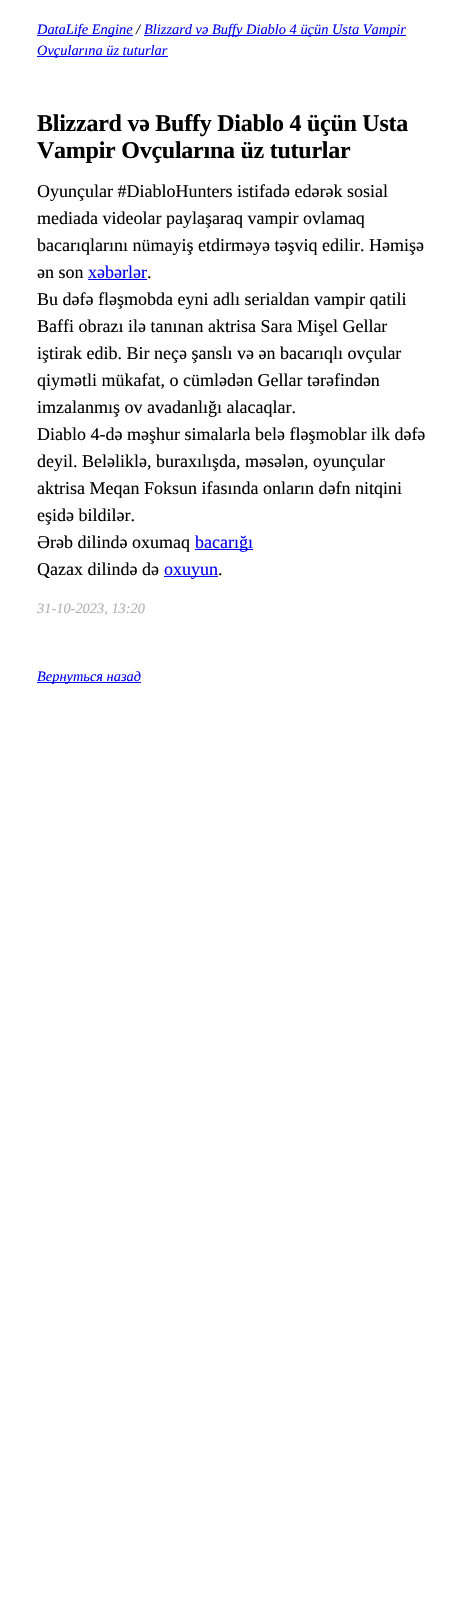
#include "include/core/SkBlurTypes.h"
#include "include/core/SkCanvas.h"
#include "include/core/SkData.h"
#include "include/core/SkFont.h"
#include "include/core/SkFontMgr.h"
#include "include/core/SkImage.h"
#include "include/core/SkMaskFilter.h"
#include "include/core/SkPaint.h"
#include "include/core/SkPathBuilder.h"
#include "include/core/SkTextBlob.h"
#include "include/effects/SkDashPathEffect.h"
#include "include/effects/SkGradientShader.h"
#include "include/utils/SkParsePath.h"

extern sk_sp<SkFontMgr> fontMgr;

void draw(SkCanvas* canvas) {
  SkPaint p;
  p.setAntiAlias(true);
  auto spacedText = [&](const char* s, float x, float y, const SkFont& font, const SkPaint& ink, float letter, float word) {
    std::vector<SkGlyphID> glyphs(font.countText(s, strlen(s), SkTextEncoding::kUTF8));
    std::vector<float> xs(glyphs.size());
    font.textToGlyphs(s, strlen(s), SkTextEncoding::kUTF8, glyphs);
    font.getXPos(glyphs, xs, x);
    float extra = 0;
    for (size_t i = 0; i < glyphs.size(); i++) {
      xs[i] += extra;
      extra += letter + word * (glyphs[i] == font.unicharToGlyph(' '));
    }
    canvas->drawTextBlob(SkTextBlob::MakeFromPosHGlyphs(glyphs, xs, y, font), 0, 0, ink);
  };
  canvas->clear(SK_ColorWHITE);
  p.setColor(SkColorSetRGB(0, 0, 238));
  canvas->drawRect(SkRect::MakeLTRB(37, 35, 133, 36), p);
  canvas->drawRect(SkRect::MakeLTRB(144, 35, 406, 36), p);
  canvas->drawRect(SkRect::MakeLTRB(37, 56, 168, 57), p);
  canvas->drawRect(SkRect::MakeLTRB(88, 279, 147, 280), p);
  canvas->drawRect(SkRect::MakeLTRB(195, 549, 253, 550), p);
  canvas->drawRect(SkRect::MakeLTRB(164, 576, 218, 577), p);
  canvas->drawRect(SkRect::MakeLTRB(37, 682, 141, 683), p);
  SkFont font1(fontMgr->matchFamilyStyle("Liberation Serif", SkFontStyle::Italic()), 14.4f);
  font1.setSubpixel(true);
  canvas->drawString("DataLife Engine", 37, 34, font1, p);
  p.setColor(SK_ColorBLACK);
  canvas->drawString("/", 136, 34, font1, p);
  p.setColor(SkColorSetRGB(0, 0, 238));
  canvas->drawString("Blizzard və Buffy Diablo 4 üçün Usta Vampir", 144, 34, font1, p);
  canvas->drawString("Ovçularına üz tuturlar", 37, 55, font1, p);
  SkFont font2(fontMgr->matchFamilyStyle("Liberation Serif", SkFontStyle::Bold()), 24);
  font2.setSubpixel(true);
  p.setColor(SK_ColorBLACK);
  spacedText("Blizzard və Buffy Diablo 4 üçün Usta", 37, 131, font2, p, -0.25f, 0);
  spacedText("Vampir Ovçularına üz tuturlar", 37, 158, font2, p, -0.25f, 0);
  SkFont font3(fontMgr->matchFamilyStyle("Liberation Serif", SkFontStyle::Normal()), 18);
  font3.setSubpixel(true);
  canvas->drawString("Oyunçular #DiabloHunters istifadə edərək sosial", 37, 197, font3, p);
  canvas->drawString("mediada videolar paylaşaraq vampir ovlamaq", 37, 224, font3, p);
  canvas->drawString("bacarıqlarını nümayiş etdirməyə təşviq edilir. Həmişə", 37, 251, font3, p);
  canvas->drawString("ən son", 37, 278, font3, p);
  p.setColor(SkColorSetRGB(0, 0, 238));
  canvas->drawString("xəbərlər", 88, 278, font3, p);
  p.setColor(SK_ColorBLACK);
  canvas->drawString(".", 147, 278, font3, p);
  canvas->drawString("Bu dəfə fləşmobda eyni adlı serialdan vampir qatili", 37, 305, font3, p);
  canvas->drawString("Baffi obrazı ilə tanınan aktrisa Sara Mişel Gellar", 37, 332, font3, p);
  canvas->drawString("iştirak edib. Bir neçə şanslı və ən bacarıqlı ovçular", 37, 359, font3, p);
  canvas->drawString("qiymətli mükafat, o cümlədən Gellar tərəfindən", 37, 386, font3, p);
  canvas->drawString("imzalanmış ov avadanlığı alacaqlar.", 37, 413, font3, p);
  canvas->drawString("Diablo 4-də məşhur simalarla belə fləşmoblar ilk dəfə", 37, 440, font3, p);
  canvas->drawString("deyil. Beləliklə, buraxılışda, məsələn, oyunçular", 37, 467, font3, p);
  canvas->drawString("aktrisa Meqan Foksun ifasında onların dəfn nitqini", 37, 494, font3, p);
  canvas->drawString("eşidə bildilər.", 37, 521, font3, p);
  canvas->drawString("Ərəb dilində oxumaq", 37, 548, font3, p);
  p.setColor(SkColorSetRGB(0, 0, 238));
  canvas->drawString("bacarığı", 195, 548, font3, p);
  p.setColor(SK_ColorBLACK);
  canvas->drawString("Qazax dilində də", 37, 575, font3, p);
  p.setColor(SkColorSetRGB(0, 0, 238));
  canvas->drawString("oxuyun", 164, 575, font3, p);
  p.setColor(SK_ColorBLACK);
  canvas->drawString(".", 218, 575, font3, p);
  p.setColor(SkColorSetRGB(177, 177, 177));
  canvas->drawString("31-10-2023, 13:20", 37, 613, font1, p);
  p.setColor(SkColorSetRGB(0, 0, 238));
  canvas->drawString("Вернуться назад", 37, 681, font1, p);
}
